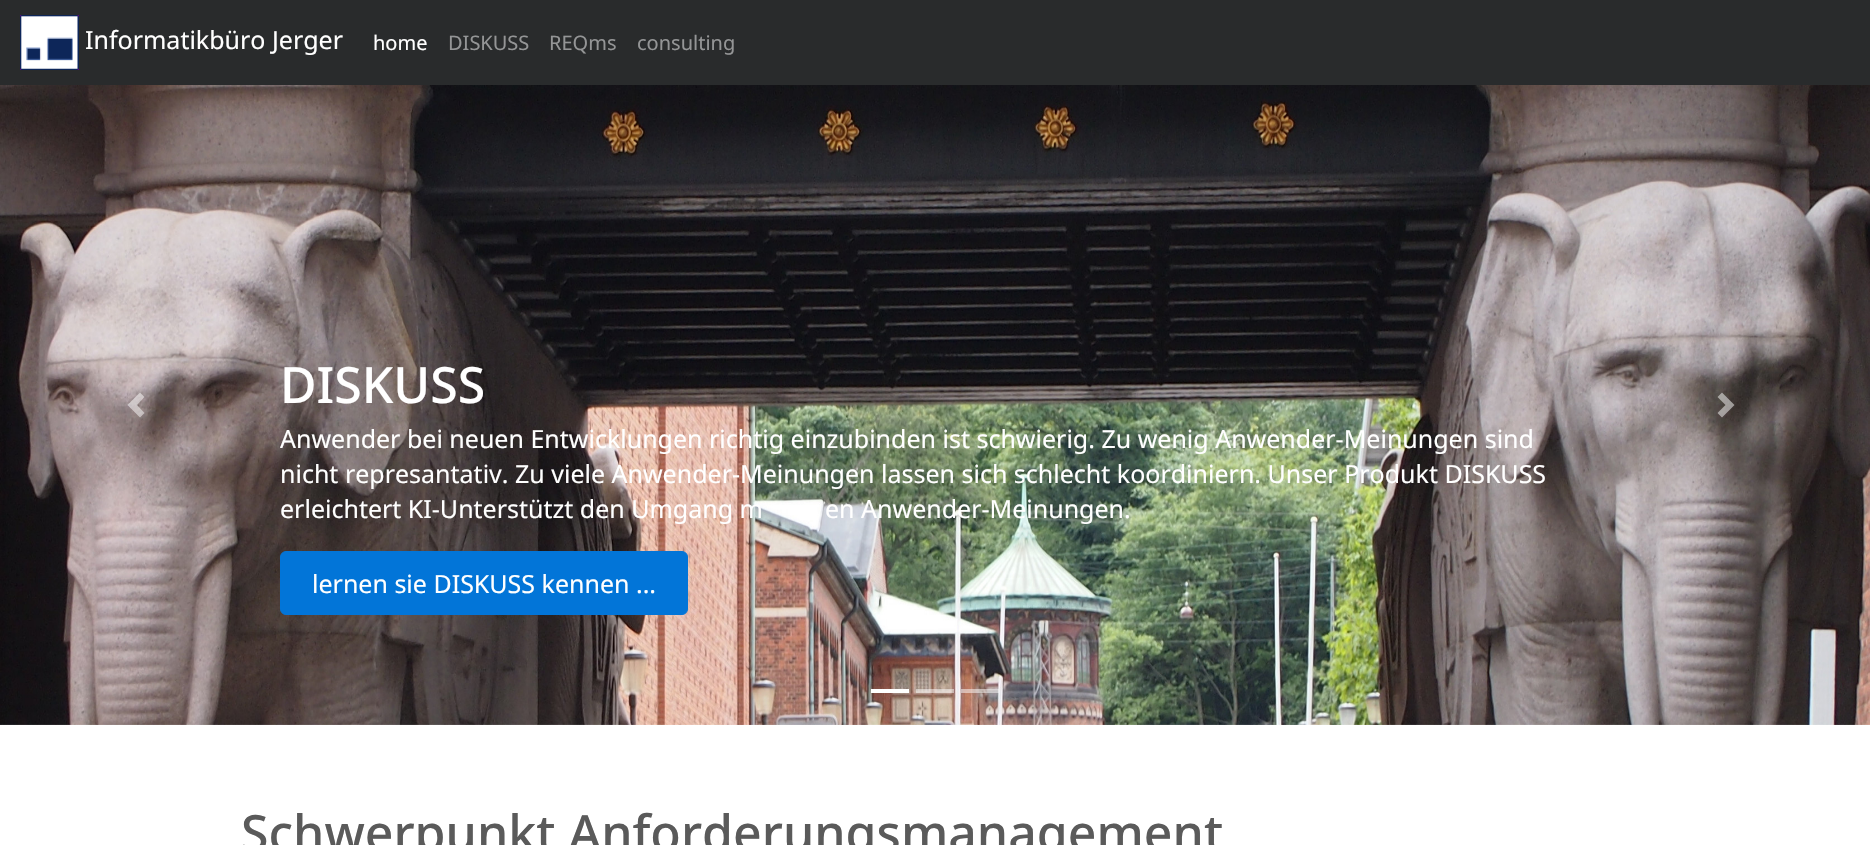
#include "include/core/SkBlurTypes.h"
#include "include/core/SkCanvas.h"
#include "include/core/SkData.h"
#include "include/core/SkFont.h"
#include "include/core/SkFontMgr.h"
#include "include/core/SkImage.h"
#include "include/core/SkMaskFilter.h"
#include "include/core/SkPaint.h"
#include "include/core/SkPathBuilder.h"
#include "include/core/SkTextBlob.h"
#include "include/effects/SkDashPathEffect.h"
#include "include/effects/SkGradientShader.h"
#include "include/utils/SkParsePath.h"

extern sk_sp<SkFontMgr> fontMgr;

void draw(SkCanvas* canvas) {
  SkPaint p;
  p.setAntiAlias(true);
  canvas->clear(SK_ColorWHITE);
  p.setColor(SkColorSetRGB(41, 43, 44));
  canvas->drawRect(SkRect::MakeLTRB(0, 0, 1870, 85), p);
  canvas->drawImageRect(SkImages::DeferredFromEncodedData(SkData::MakeFromFileName("images/1.png")), SkRect::MakeLTRB(20, 15, 79, 70), SkSamplingOptions());
  canvas->drawImageRect(SkImages::DeferredFromEncodedData(SkData::MakeFromFileName("images/2.png")), SkRect::MakeLTRB(0, 85, 1870, 725), SkSamplingOptions());
  p.setColor(SkColorSetARGB(128, 255, 255, 255));
  canvas->drawPath(SkPathBuilder().moveTo(140, 392.5f).lineTo(127.5f, 405).lineTo(140, 417.5f).lineTo(144.5f, 413).lineTo(137, 405).lineTo(144.5f, 397).close().detach(), p);
  p.setColor(SkColorSetRGB(2, 117, 216));
  canvas->drawRoundRect(SkRect::MakeLTRB(280.5f, 551.5f, 687.5f, 614.5f), 5.5f, 5.5f, p);
  p.setStyle(SkPaint::kStroke_Style);
  p.setStrokeWidth(1);
  canvas->drawRoundRect(SkRect::MakeLTRB(280.5f, 551.5f, 687.5f, 614.5f), 5.5f, 5.5f, p);
  p.setStyle(SkPaint::kFill_Style);
  p.setColor(SkColorSetARGB(128, 255, 255, 255));
  canvas->drawPath(SkPathBuilder().moveTo(1722, 392.5f).lineTo(1717.5f, 397).lineTo(1725.5f, 405).lineTo(1717.5f, 413).lineTo(1722, 417.5f).lineTo(1734.5f, 405).close().detach(), p);
  p.setColor(SK_ColorWHITE);
  canvas->drawRect(SkRect::MakeLTRB(871, 689, 909, 693), p);
  p.setColor(SkColorSetARGB(128, 255, 255, 255));
  canvas->drawRect(SkRect::MakeLTRB(916, 689, 954, 693), p);
  canvas->drawRect(SkRect::MakeLTRB(961, 689, 999, 693), p);
  SkFont font1(fontMgr->matchFamilyStyle("Noto Sans", SkFontStyle::Normal()), 25);
  font1.setSubpixel(true);
  p.setColor(SK_ColorWHITE);
  canvas->drawString("Informatikbüro Jerger", 85, 49, font1, p);
  SkFont font2(fontMgr->matchFamilyStyle("Noto Sans", SkFontStyle::Normal()), 20);
  font2.setSubpixel(true);
  canvas->drawString("home", 373, 50, font2, p);
  p.setColor(SkColorSetRGB(148, 149, 150));
  canvas->drawString("DISKUSS", 448, 50, font2, p);
  canvas->drawString("REQms", 549, 50, font2, p);
  canvas->drawString("consulting", 637, 50, font2, p);
  SkFont font3(fontMgr->matchFamilyStyle("Noto Sans", SkFontStyle(500, SkFontStyle::kNormal_Width, SkFontStyle::kUpright_Slant)), 50);
  font3.setSubpixel(true);
  p.setColor(SK_ColorWHITE);
  canvas->drawString("DISKUSS", 280, 403, font3, p);
  canvas->drawString("Anwender bei neuen Entwicklungen richtig einzubinden ist schwierig. Zu wenig Anwender-Meinungen sind", 280, 448, font1, p);
  canvas->drawString("nicht represantativ. Zu viele Anwender-Meinungen lassen sich schlecht koordiniern. Unser Produkt DISKUSS", 280, 483, font1, p);
  canvas->drawString("erleichtert KI-Unterstützt den Umgang m", 280, 518, font1, p);
  canvas->drawString("en Anwender-Meinungen.", 825, 518, font1, p);
  canvas->drawString("lernen sie DISKUSS kennen ...", 312, 593, font1, p);
  p.setColor(SkColorSetRGB(90, 90, 90));
  canvas->drawString("Schwerpunkt Anforderungsmanagement", 241, 851, font3, p);
}
